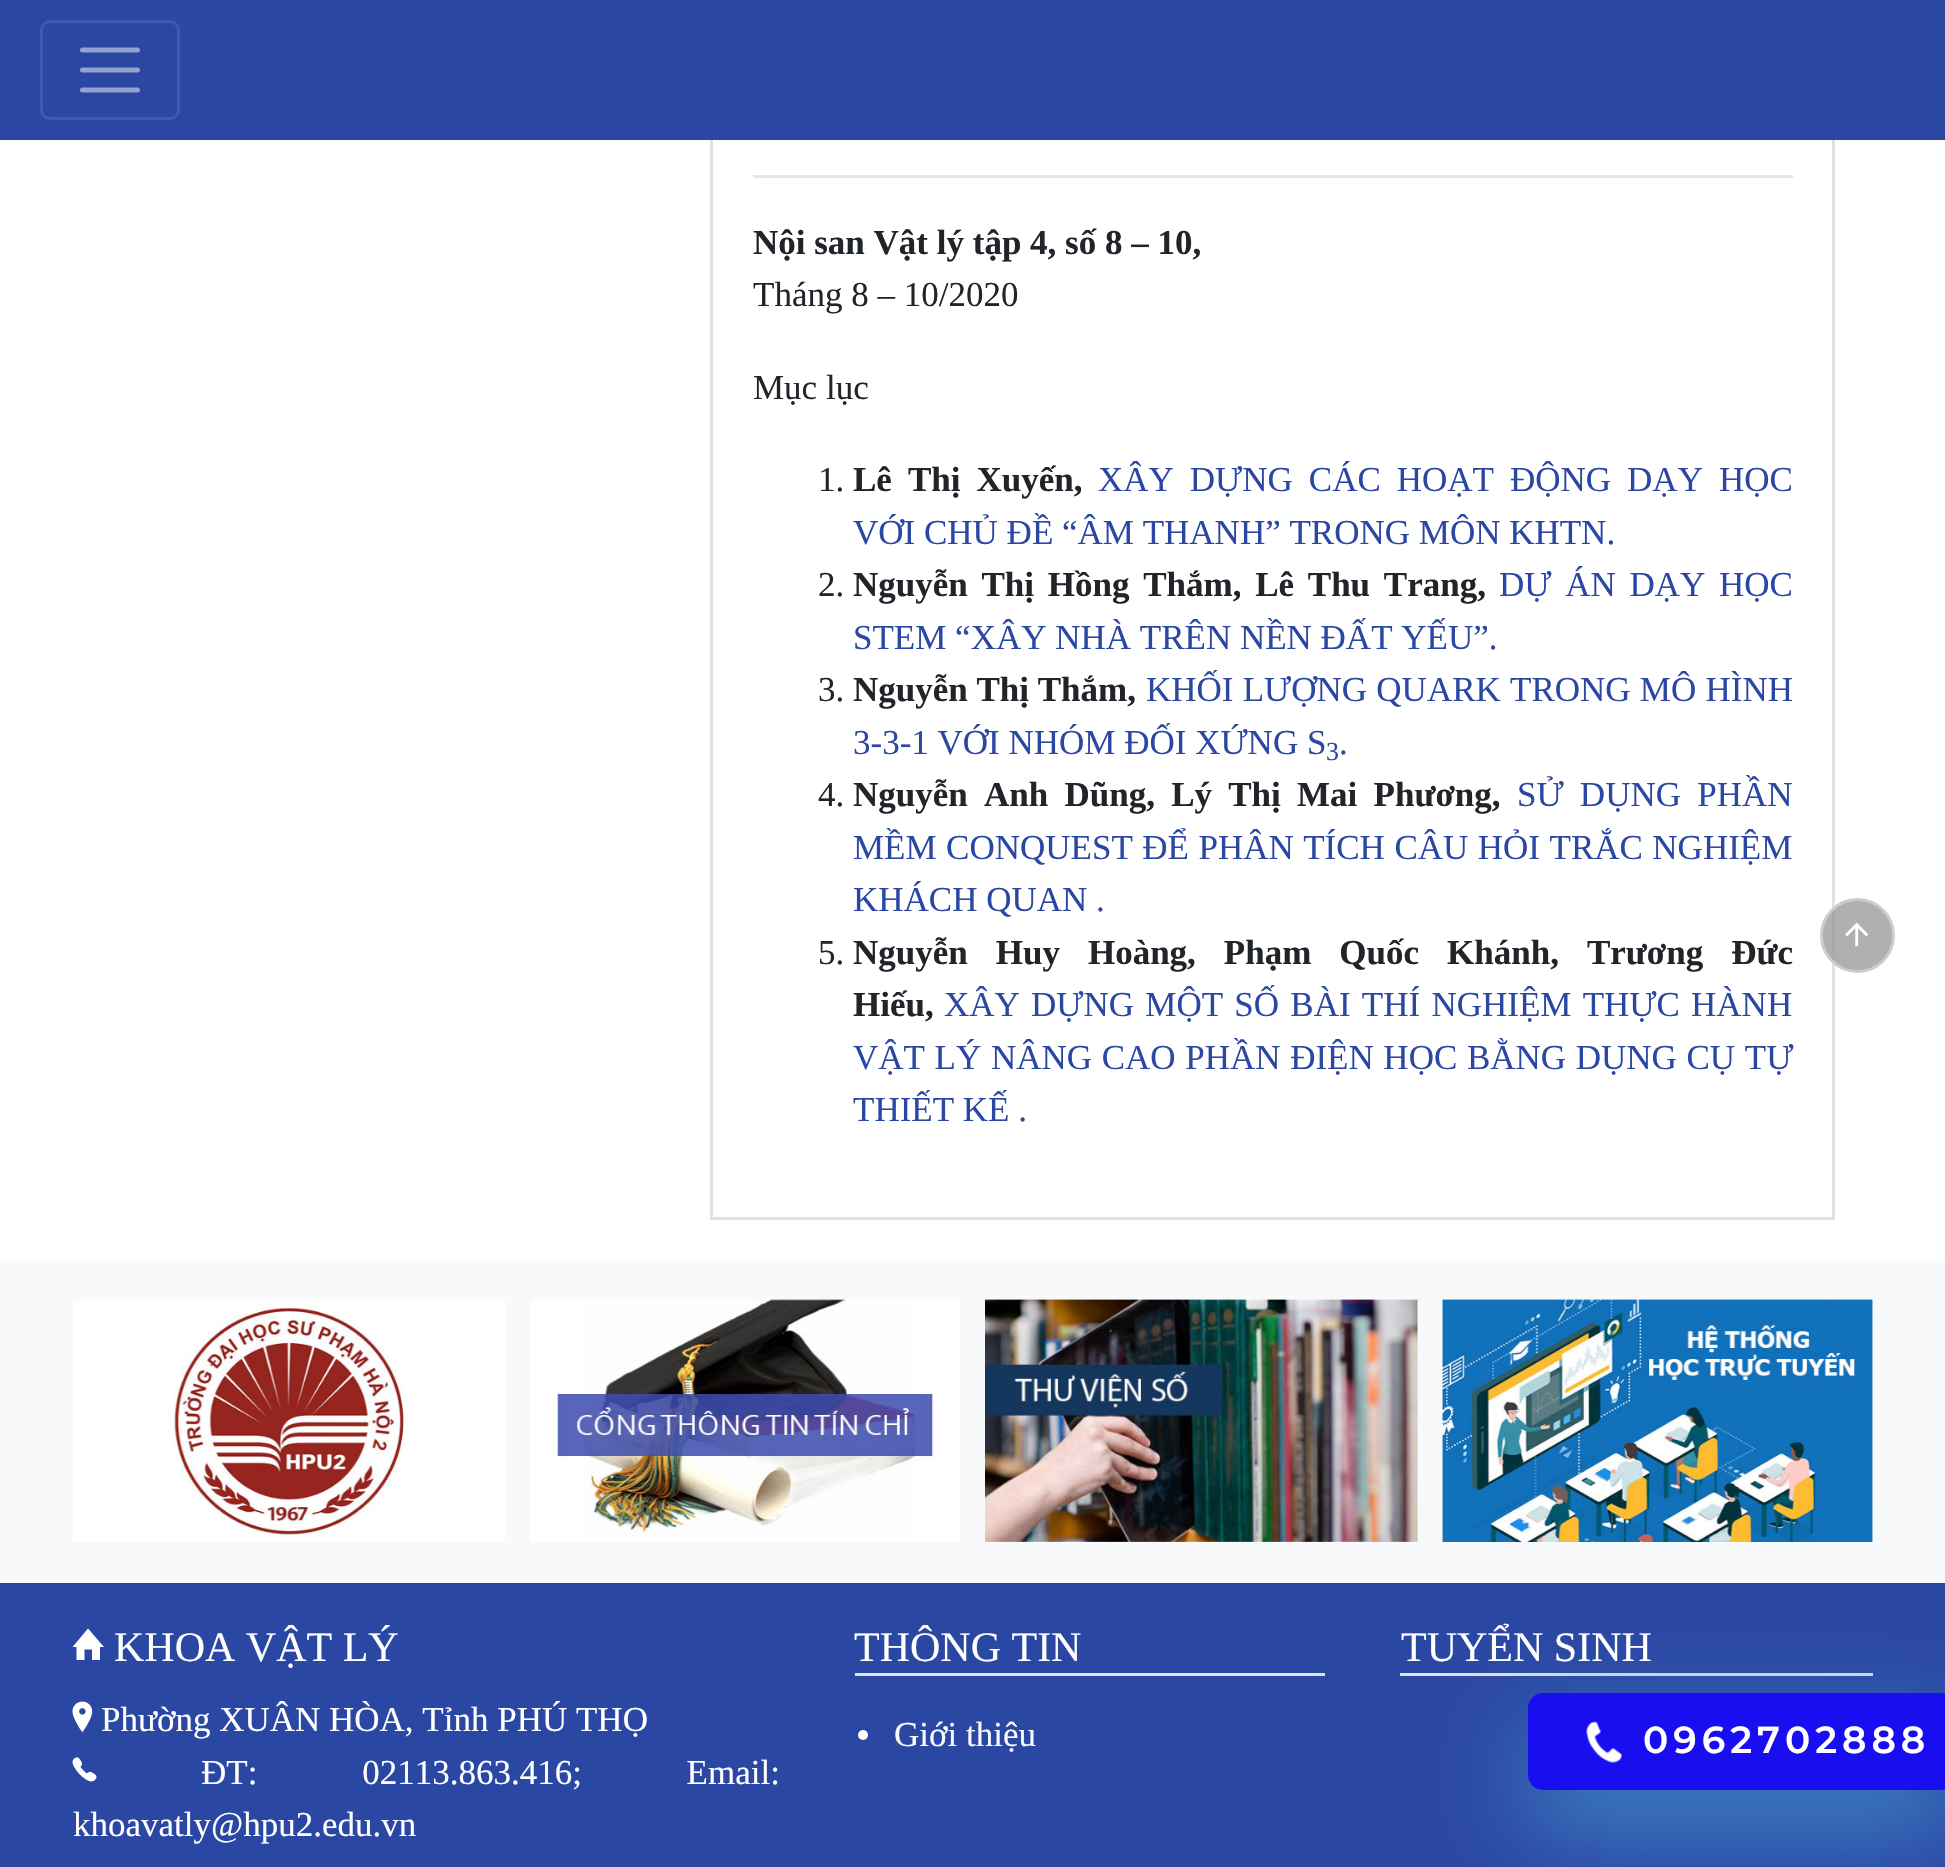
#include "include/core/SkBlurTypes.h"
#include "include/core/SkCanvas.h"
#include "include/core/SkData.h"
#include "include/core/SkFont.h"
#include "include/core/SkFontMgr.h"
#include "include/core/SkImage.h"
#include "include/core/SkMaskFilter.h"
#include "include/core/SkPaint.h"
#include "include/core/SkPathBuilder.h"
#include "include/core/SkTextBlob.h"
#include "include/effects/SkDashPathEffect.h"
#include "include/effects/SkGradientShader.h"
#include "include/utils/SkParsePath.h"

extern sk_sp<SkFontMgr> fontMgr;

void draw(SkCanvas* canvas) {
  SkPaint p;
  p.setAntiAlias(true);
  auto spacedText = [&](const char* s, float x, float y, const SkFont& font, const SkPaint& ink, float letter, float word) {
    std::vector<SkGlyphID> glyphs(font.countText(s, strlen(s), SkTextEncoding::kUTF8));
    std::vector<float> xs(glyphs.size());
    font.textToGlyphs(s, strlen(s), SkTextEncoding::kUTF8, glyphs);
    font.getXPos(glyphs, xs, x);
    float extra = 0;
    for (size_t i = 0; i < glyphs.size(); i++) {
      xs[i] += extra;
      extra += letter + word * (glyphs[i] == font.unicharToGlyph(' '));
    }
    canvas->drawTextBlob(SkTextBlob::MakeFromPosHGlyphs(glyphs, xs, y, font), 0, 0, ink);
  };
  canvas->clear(SK_ColorWHITE);
  p.setStyle(SkPaint::kStroke_Style);
  p.setStrokeWidth(3);
  p.setColor(SkColorSetRGB(222, 226, 230));
  canvas->drawRect(SkRect::MakeLTRB(711.5f, 94.5f, 1833.5f, 1218.5f), p);
  p.setStyle(SkPaint::kFill_Style);
  p.setColor(SkColorSetRGB(43, 71, 164));
  canvas->drawRect(SkRect::MakeLTRB(0, 0, 1945, 140), p);
  p.setStyle(SkPaint::kStroke_Style);
  p.setColor(SkColorSetRGB(64, 89, 173));
  canvas->drawRoundRect(SkRect::MakeLTRB(41.5f, 21.5f, 178.5f, 118.5f), 8.5f, 8.5f, p);
  p.setStrokeWidth(5);
  p.setStrokeCap(SkPaint::kRound_Cap);
  p.setColor(SkColorSetRGB(149, 163, 210));
  canvas->drawPath(SkPathBuilder().moveTo(82.5f, 50).lineTo(137.5f, 50).moveTo(82.5f, 70).lineTo(137.5f, 70).moveTo(82.5f, 90).lineTo(137.5f, 90).detach(), p);
  p.setStyle(SkPaint::kFill_Style);
  p.setColor(SkColorSetRGB(230, 230, 230));
  canvas->drawRect(SkRect::MakeLTRB(753, 175, 1793, 178), p);
  p.setColor(SkColorSetARGB(191, 150, 150, 150));
  canvas->drawCircle(1857.5f, 935.5f, 36, p);
  p.setStyle(SkPaint::kStroke_Style);
  p.setStrokeWidth(3);
  p.setStrokeCap(SkPaint::kButt_Cap);
  p.setColor(SkColorSetRGB(204, 204, 204));
  canvas->drawCircle(1857.5f, 935.5f, 36, p);
  canvas->drawImageRect(SkImages::DeferredFromEncodedData(SkData::MakeFromFileName("images/1.png")), SkRect::MakeLTRB(1845, 922, 1869, 947), SkSamplingOptions());
  p.setStyle(SkPaint::kFill_Style);
  p.setColor(SkColorSetRGB(248, 249, 250));
  canvas->drawRect(SkRect::MakeLTRB(0, 1260, 1945, 1583), p);
  canvas->drawImageRect(SkImages::DeferredFromEncodedData(SkData::MakeFromFileName("images/2.png")), SkRect::MakeLTRB(73, 1300, 505, 1542), SkSamplingOptions());
  canvas->drawImageRect(SkImages::DeferredFromEncodedData(SkData::MakeFromFileName("images/3.png")), SkRect::MakeLTRB(530, 1299, 960, 1542), SkSamplingOptions());
  canvas->drawImageRect(SkImages::DeferredFromEncodedData(SkData::MakeFromFileName("images/4.png")), SkRect::MakeLTRB(985, 1299, 1418, 1542), SkSamplingOptions());
  canvas->drawImageRect(SkImages::DeferredFromEncodedData(SkData::MakeFromFileName("images/5.png")), SkRect::MakeLTRB(1442, 1299, 1873, 1542), SkSamplingOptions());
  p.setColor(SkColorSetRGB(43, 71, 164));
  canvas->drawRect(SkRect::MakeLTRB(0, 1583, 1945, 1867), p);
  p.setColor(SK_ColorWHITE);
  canvas->drawPath(SkPathBuilder().moveTo(104, 1647).lineTo(100, 1647).lineTo(100, 1660).lineTo(92, 1660).lineTo(92, 1649.5f).lineTo(84.5f, 1649.5f).lineTo(84.5f, 1660).lineTo(76.5f, 1660).lineTo(76.5f, 1647).lineTo(72.5f, 1647).lineTo(88, 1628.5f).close().detach(), p);
  canvas->drawImageRect(SkImages::DeferredFromEncodedData(SkData::MakeFromFileName("images/6.png")), SkRect::MakeLTRB(72, 1701, 93, 1733), SkSamplingOptions());
  canvas->drawImageRect(SkImages::DeferredFromEncodedData(SkData::MakeFromFileName("images/7.png")), SkRect::MakeLTRB(72, 1757, 97, 1782), SkSamplingOptions());
  p.setColor(SkColorSetRGB(222, 226, 230));
  canvas->drawRect(SkRect::MakeLTRB(855, 1673, 1325, 1676), p);
  p.setColor(SK_ColorWHITE);
  canvas->drawCircle(863, 1735, 5, p);
  p.setColor(SkColorSetRGB(222, 226, 230));
  canvas->drawRect(SkRect::MakeLTRB(1400, 1673, 1873, 1676), p);
  p.setColor(SkColorSetRGB(61, 133, 198));
  p.setMaskFilter(SkMaskFilter::MakeBlur(kNormal_SkBlurStyle, 50));
  canvas->drawRoundRect(SkRect::MakeLTRB(1528, 1730, 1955, 1828), 15, 15, p);
  p.setMaskFilter(nullptr);
  p.setColor(SkColorSetRGB(25, 14, 240));
  canvas->drawRoundRect(SkRect::MakeLTRB(1528, 1693, 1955, 1790), 15, 15, p);
  canvas->drawImageRect(SkImages::DeferredFromEncodedData(SkData::MakeFromFileName("images/8.png")), SkRect::MakeLTRB(1586, 1721, 1622, 1763), SkSamplingOptions());
  SkFont font1(fontMgr->matchFamilyStyle("Liberation Serif", SkFontStyle::Bold()), 35);
  font1.setSubpixel(true);
  p.setColor(SkColorSetRGB(33, 37, 41));
  canvas->drawString("Nội san Vật lý tập 4, số 8 – 10,", 753, 254, font1, p);
  SkFont font2(fontMgr->matchFamilyStyle("Liberation Serif", SkFontStyle::Normal()), 35);
  font2.setSubpixel(true);
  canvas->drawString("Tháng 8 – 10/2020", 753, 306, font2, p);
  canvas->drawString("Mục lục", 753, 399, font2, p);
  canvas->drawString("1.", 818, 491, font2, p);
  spacedText("Lê Thị Xuyến,", 853, 491, font1, p, 0, 7.25f);
  p.setColor(SkColorSetRGB(43, 71, 164));
  spacedText("XÂY DỰNG CÁC HOẠT ĐỘNG DẠY HỌC", 1098, 491, font2, p, 0, 7.25f);
  canvas->drawString("VỚI CHỦ ĐỀ “ÂM THANH” TRONG MÔN KHTN.", 853, 544, font2, p);
  p.setColor(SkColorSetRGB(33, 37, 41));
  canvas->drawString("2.", 818, 596, font2, p);
  spacedText("Nguyễn Thị Hồng Thắm, Lê Thu Trang,", 853, 596, font1, p, 0, 5);
  p.setColor(SkColorSetRGB(43, 71, 164));
  spacedText("DỰ ÁN DẠY HỌC", 1499, 596, font2, p, 0, 5);
  canvas->drawString("STEM “XÂY NHÀ TRÊN NỀN ĐẤT YẾU”.", 853, 649, font2, p);
  p.setColor(SkColorSetRGB(33, 37, 41));
  canvas->drawString("3.", 818, 701, font2, p);
  canvas->drawString("Nguyễn Thị Thắm,", 853, 701, font1, p);
  p.setColor(SkColorSetRGB(43, 71, 164));
  spacedText("KHỐI LƯỢNG QUARK TRONG MÔ HÌNH", 1146, 701, font2, p, 0, 0.5f);
  canvas->drawString("3-3-1 VỚI NHÓM ĐỐI XỨNG S", 853, 754, font2, p);
  SkFont font3(fontMgr->matchFamilyStyle("Liberation Serif", SkFontStyle::Normal()), 26);
  font3.setSubpixel(true);
  canvas->drawString("3", 1326, 760, font3, p);
  canvas->drawString(".", 1339, 754, font2, p);
  p.setColor(SkColorSetRGB(33, 37, 41));
  canvas->drawString("4.", 818, 806, font2, p);
  spacedText("Nguyễn Anh Dũng, Lý Thị Mai Phương,", 853, 806, font1, p, 0, 7.5f);
  p.setColor(SkColorSetRGB(43, 71, 164));
  spacedText("SỬ DỤNG PHẦN", 1517, 806, font2, p, 0, 7.5f);
  spacedText("MỀM CONQUEST ĐỂ PHÂN TÍCH CÂU HỎI TRẮC NGHIỆM", 853, 859, font2, p, 0, 0.75f);
  canvas->drawString("KHÁCH QUAN .", 853, 911, font2, p);
  p.setColor(SkColorSetRGB(33, 37, 41));
  canvas->drawString("5.", 818, 964, font2, p);
  spacedText("Nguyễn Huy Hoàng, Phạm Quốc Khánh, Trương Đức", 853, 964, font1, p, 0, 19.25f);
  canvas->drawString("Hiếu,", 853, 1016, font1, p);
  p.setColor(SkColorSetRGB(43, 71, 164));
  spacedText("XÂY DỰNG MỘT SỐ BÀI THÍ NGHIỆM THỰC HÀNH", 944, 1016, font2, p, 0, 2.5f);
  spacedText("VẬT LÝ NÂNG CAO PHẦN ĐIỆN HỌC BẰNG DỤNG CỤ TỰ", 853, 1069, font2, p, 0, 0.9f);
  canvas->drawString("THIẾT KẾ .", 853, 1121, font2, p);
  SkFont font4(fontMgr->matchFamilyStyle("Liberation Serif", SkFontStyle::Normal()), 42);
  font4.setSubpixel(true);
  p.setColor(SK_ColorWHITE);
  canvas->drawString("KHOA VẬT LÝ", 114, 1661, font4, p);
  canvas->drawString("Phường XUÂN HÒA, Tỉnh PHÚ THỌ", 101, 1731, font2, p);
  spacedText("ĐT: 02113.863.416; Email:", 201, 1784, font2, p, 0, 96);
  canvas->drawString("khoavatly@hpu2.edu.vn", 73, 1836, font2, p);
  canvas->drawString("THÔNG TIN", 854, 1661, font4, p);
  p.setColor(SkColorSetRGB(248, 249, 250));
  canvas->drawString("Giới thiệu", 894, 1746, font2, p);
  p.setColor(SK_ColorWHITE);
  canvas->drawString("TUYỂN SINH", 1401, 1661, font4, p);
  SkFont font5(fontMgr->matchFamilyStyle("Montserrat", SkFontStyle(600, SkFontStyle::kNormal_Width, SkFontStyle::kUpright_Slant)), 37.5f);
  font5.setSubpixel(true);
  spacedText("0962702888", 1643, 1753, font5, p, 5, 0);
}
